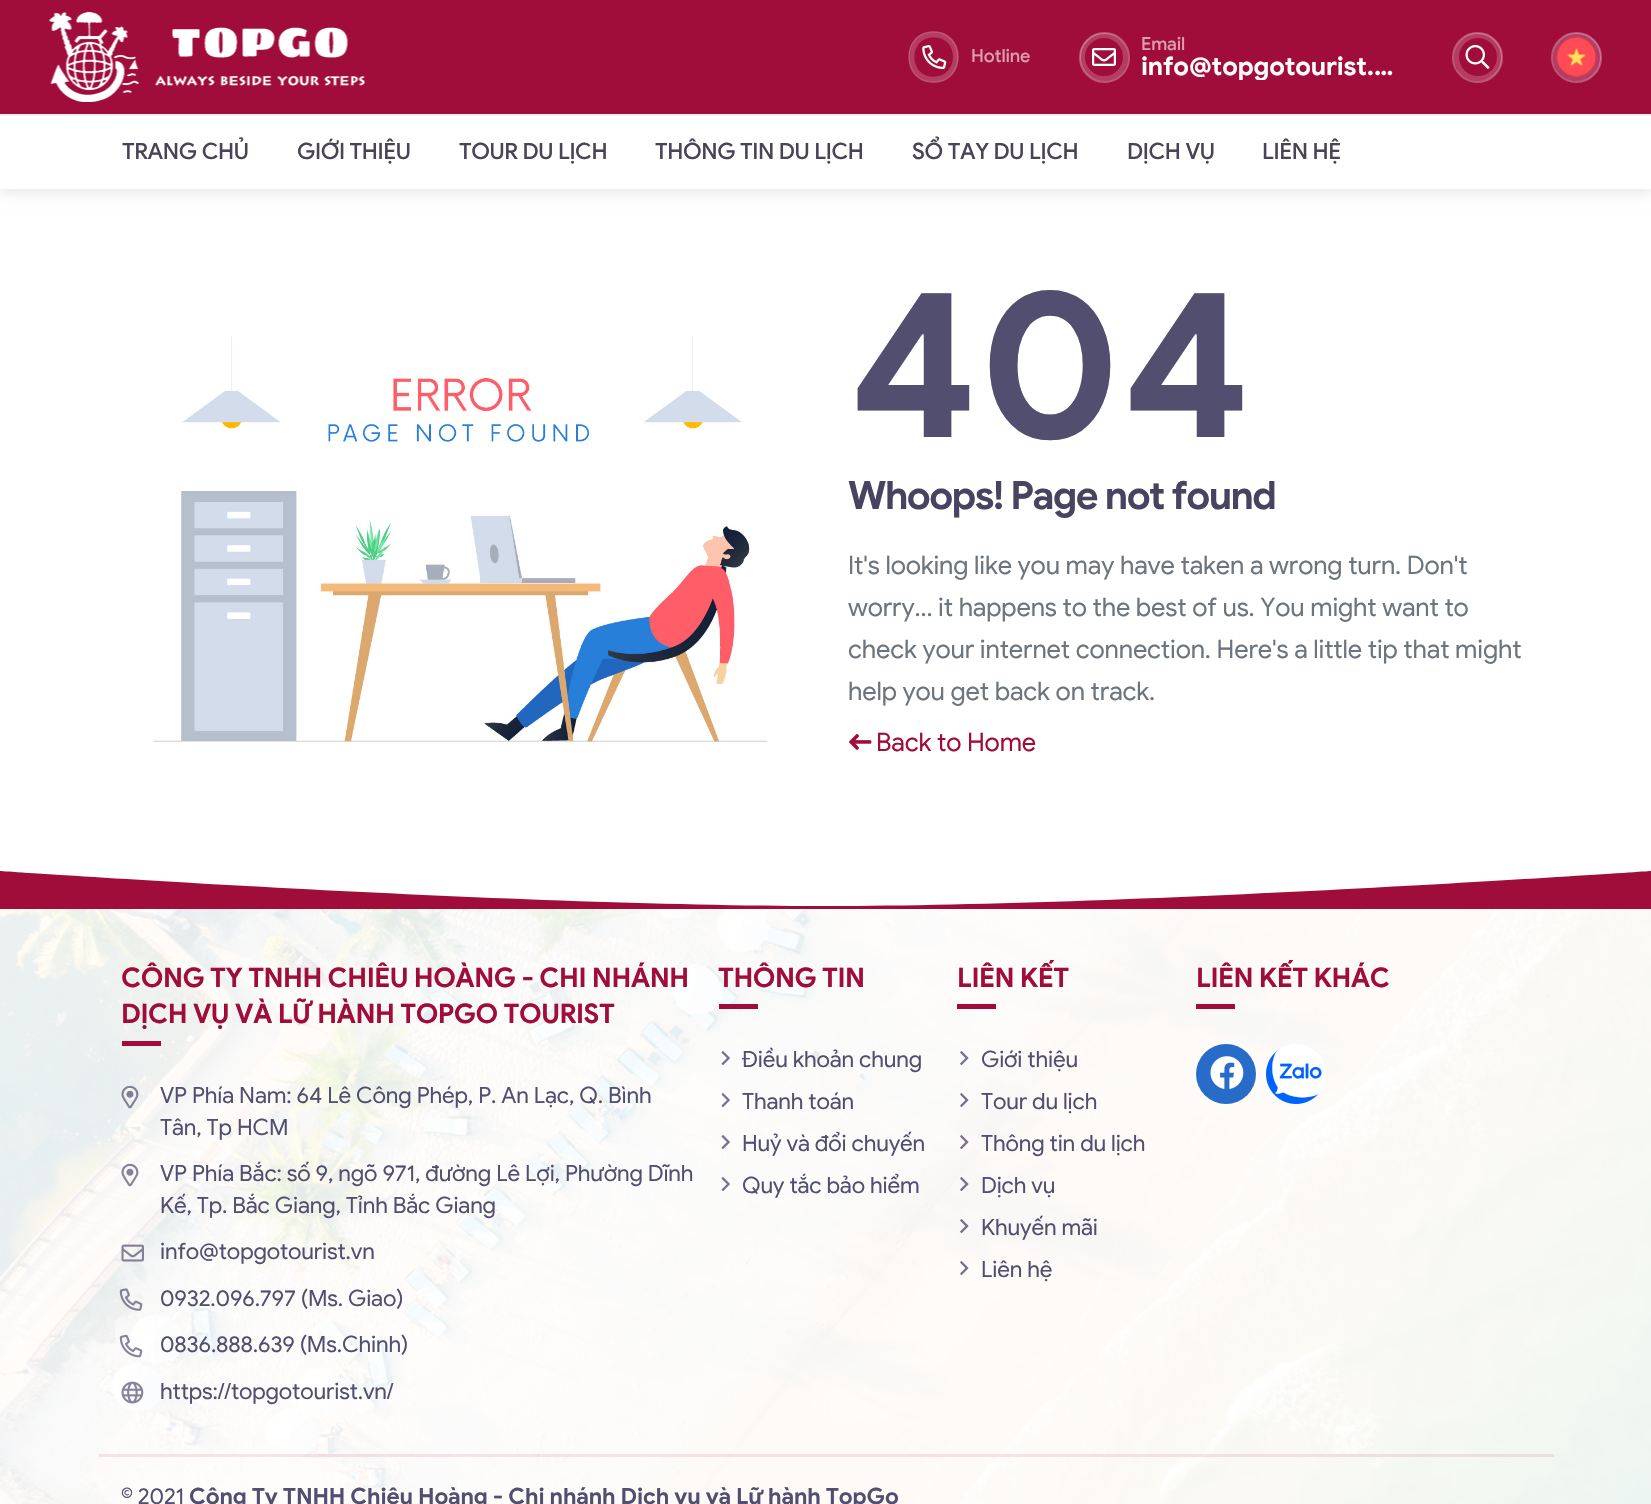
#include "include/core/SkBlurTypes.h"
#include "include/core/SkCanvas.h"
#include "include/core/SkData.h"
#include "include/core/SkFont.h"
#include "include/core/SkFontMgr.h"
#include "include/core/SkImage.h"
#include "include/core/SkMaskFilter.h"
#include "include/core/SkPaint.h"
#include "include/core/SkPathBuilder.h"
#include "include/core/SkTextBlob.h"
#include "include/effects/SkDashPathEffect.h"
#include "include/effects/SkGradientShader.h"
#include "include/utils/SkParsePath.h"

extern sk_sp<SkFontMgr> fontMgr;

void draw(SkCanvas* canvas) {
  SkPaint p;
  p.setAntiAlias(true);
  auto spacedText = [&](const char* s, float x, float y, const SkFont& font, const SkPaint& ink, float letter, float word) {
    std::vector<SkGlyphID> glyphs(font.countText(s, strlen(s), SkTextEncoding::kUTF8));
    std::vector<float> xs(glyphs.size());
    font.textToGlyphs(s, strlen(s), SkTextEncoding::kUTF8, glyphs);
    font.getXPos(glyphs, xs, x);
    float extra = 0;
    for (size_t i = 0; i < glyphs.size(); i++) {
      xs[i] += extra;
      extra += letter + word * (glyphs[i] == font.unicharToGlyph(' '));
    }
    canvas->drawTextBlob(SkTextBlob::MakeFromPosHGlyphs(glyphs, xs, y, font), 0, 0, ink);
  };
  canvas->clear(SK_ColorWHITE);
  p.setColor(SkColorSetARGB(26, 0, 0, 0));
  p.setMaskFilter(SkMaskFilter::MakeBlur(kNormal_SkBlurStyle, 6));
  canvas->drawRect(SkRect::MakeLTRB(0, 3, 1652, 192), p);
  p.setMaskFilter(nullptr);
  p.setColor(SkColorSetRGB(161, 13, 59));
  canvas->drawRect(SkRect::MakeLTRB(0, 0, 1651, 114), p);
  canvas->drawImageRect(SkImages::DeferredFromEncodedData(SkData::MakeFromFileName("images/1.png")), SkRect::MakeLTRB(49, 12, 365, 102), SkSamplingOptions());
  p.setStyle(SkPaint::kStroke_Style);
  p.setStrokeWidth(4.5f);
  p.setColor(SkColorSetRGB(180, 61, 98));
  canvas->drawPath(SkPathBuilder().moveTo(933.5f, 35).cubicTo(905, 35, 905, 79, 933.5f, 79).cubicTo(962.5f, 78.5f, 962.5f, 35, 933.5f, 35).close().detach(), p);
  p.setStrokeWidth(1.5f);
  p.setColor(SkColorSetARGB(77, 255, 255, 255));
  canvas->drawPath(SkPathBuilder().moveTo(933.5f, 32).cubicTo(901, 32, 901, 82, 933.5f, 82).cubicTo(966, 82, 966, 32, 933.5f, 32).close().detach(), p);
  canvas->drawImageRect(SkImages::DeferredFromEncodedData(SkData::MakeFromFileName("images/2.png")), SkRect::MakeLTRB(922, 45, 947, 69), SkSamplingOptions());
  p.setStrokeWidth(5);
  p.setColor(SkColorSetRGB(180, 61, 98));
  canvas->drawCircle(1104, 57, 21.5f, p);
  p.setStrokeWidth(2);
  p.setColor(SkColorSetARGB(77, 255, 255, 255));
  canvas->drawCircle(1104.5f, 57.5f, 24.5f, p);
  canvas->drawImageRect(SkImages::DeferredFromEncodedData(SkData::MakeFromFileName("images/3.png")), SkRect::MakeLTRB(1092, 48, 1116, 66), SkSamplingOptions());
  p.setStrokeWidth(5);
  p.setColor(SkColorSetRGB(180, 61, 98));
  canvas->drawCircle(1478, 57, 21.5f, p);
  p.setStrokeWidth(2);
  p.setColor(SkColorSetARGB(77, 255, 255, 255));
  canvas->drawCircle(1477.5f, 57.5f, 24.5f, p);
  canvas->drawImageRect(SkImages::DeferredFromEncodedData(SkData::MakeFromFileName("images/4.png")), SkRect::MakeLTRB(1465, 45, 1490, 69), SkSamplingOptions());
  p.setStrokeWidth(5);
  p.setColor(SkColorSetRGB(180, 61, 98));
  canvas->drawCircle(1577, 57, 21.5f, p);
  p.setStrokeWidth(2);
  p.setColor(SkColorSetARGB(77, 255, 255, 255));
  canvas->drawCircle(1576.5f, 57.5f, 24.5f, p);
  canvas->drawImageRect(SkImages::DeferredFromEncodedData(SkData::MakeFromFileName("images/5.png")), SkRect::MakeLTRB(1556, 37, 1597, 77), SkSamplingOptions());
  p.setStyle(SkPaint::kFill_Style);
  p.setColor(SK_ColorWHITE);
  canvas->drawRect(SkRect::MakeLTRB(0, 116, 1651, 189), p);
  p.setColor(SkColorSetRGB(238, 238, 238));
  canvas->drawRect(SkRect::MakeLTRB(0, 114, 1651, 116), p);
  canvas->drawImageRect(SkImages::DeferredFromEncodedData(SkData::MakeFromFileName("images/6.png")), SkRect::MakeLTRB(153, 336, 768, 745), SkSamplingOptions());
  canvas->drawImageRect(SkImages::DeferredFromEncodedData(SkData::MakeFromFileName("images/7.png")), SkRect::MakeLTRB(849, 734, 872, 750), SkSamplingOptions());
  p.setColor(SkColorSetRGB(161, 13, 59));
  canvas->drawPath(SkPathBuilder().moveTo(1651, 909).lineTo(0, 909).lineTo(0, 871).cubicTo(0, 871, 506, 906, 825, 906).cubicTo(1145, 906, 1651, 871, 1651, 871).close().detach(), p);
  canvas->drawImageRect(SkImages::DeferredFromEncodedData(SkData::MakeFromFileName("images/8.png")), SkRect::MakeLTRB(0, 909, 1651, 1504), SkSamplingOptions());
  canvas->drawRect(SkRect::MakeLTRB(122, 1041, 161, 1046), p);
  canvas->drawImageRect(SkImages::DeferredFromEncodedData(SkData::MakeFromFileName("images/9.png")), SkRect::MakeLTRB(121, 1085, 139, 1109), SkSamplingOptions());
  canvas->drawImageRect(SkImages::DeferredFromEncodedData(SkData::MakeFromFileName("images/10.png")), SkRect::MakeLTRB(121, 1163, 139, 1187), SkSamplingOptions());
  canvas->drawImageRect(SkImages::DeferredFromEncodedData(SkData::MakeFromFileName("images/11.png")), SkRect::MakeLTRB(121, 1244, 144, 1262), SkSamplingOptions());
  canvas->drawImageRect(SkImages::DeferredFromEncodedData(SkData::MakeFromFileName("images/12.png")), SkRect::MakeLTRB(119, 1288, 143, 1311), SkSamplingOptions());
  canvas->drawImageRect(SkImages::DeferredFromEncodedData(SkData::MakeFromFileName("images/13.png")), SkRect::MakeLTRB(119, 1334, 143, 1358), SkSamplingOptions());
  canvas->drawImageRect(SkImages::DeferredFromEncodedData(SkData::MakeFromFileName("images/14.png")), SkRect::MakeLTRB(121, 1381, 144, 1404), SkSamplingOptions());
  canvas->drawRect(SkRect::MakeLTRB(719, 1004, 758, 1009), p);
  canvas->drawImageRect(SkImages::DeferredFromEncodedData(SkData::MakeFromFileName("images/15.png")), SkRect::MakeLTRB(721, 1051, 730, 1065), SkSamplingOptions());
  canvas->drawImageRect(SkImages::DeferredFromEncodedData(SkData::MakeFromFileName("images/16.png")), SkRect::MakeLTRB(721, 1093, 730, 1107), SkSamplingOptions());
  canvas->drawImageRect(SkImages::DeferredFromEncodedData(SkData::MakeFromFileName("images/17.png")), SkRect::MakeLTRB(721, 1135, 730, 1149), SkSamplingOptions());
  canvas->drawImageRect(SkImages::DeferredFromEncodedData(SkData::MakeFromFileName("images/18.png")), SkRect::MakeLTRB(721, 1177, 730, 1191), SkSamplingOptions());
  canvas->drawRect(SkRect::MakeLTRB(957, 1004, 996, 1009), p);
  canvas->drawImageRect(SkImages::DeferredFromEncodedData(SkData::MakeFromFileName("images/19.png")), SkRect::MakeLTRB(960, 1051, 969, 1065), SkSamplingOptions());
  canvas->drawImageRect(SkImages::DeferredFromEncodedData(SkData::MakeFromFileName("images/20.png")), SkRect::MakeLTRB(960, 1093, 969, 1107), SkSamplingOptions());
  canvas->drawImageRect(SkImages::DeferredFromEncodedData(SkData::MakeFromFileName("images/21.png")), SkRect::MakeLTRB(960, 1135, 969, 1149), SkSamplingOptions());
  canvas->drawImageRect(SkImages::DeferredFromEncodedData(SkData::MakeFromFileName("images/22.png")), SkRect::MakeLTRB(960, 1177, 969, 1191), SkSamplingOptions());
  canvas->drawImageRect(SkImages::DeferredFromEncodedData(SkData::MakeFromFileName("images/23.png")), SkRect::MakeLTRB(960, 1219, 969, 1233), SkSamplingOptions());
  canvas->drawImageRect(SkImages::DeferredFromEncodedData(SkData::MakeFromFileName("images/24.png")), SkRect::MakeLTRB(960, 1261, 969, 1275), SkSamplingOptions());
  canvas->drawRect(SkRect::MakeLTRB(1196, 1004, 1235, 1009), p);
  p.setColor(SkColorSetRGB(40, 108, 201));
  canvas->drawCircle(1226, 1074, 30, p);
  canvas->drawImageRect(SkImages::DeferredFromEncodedData(SkData::MakeFromFileName("images/25.png")), SkRect::MakeLTRB(1210, 1056, 1244, 1089), SkSamplingOptions());
  canvas->drawImageRect(SkImages::DeferredFromEncodedData(SkData::MakeFromFileName("images/26.png")), SkRect::MakeLTRB(1266, 1044, 1326, 1104), SkSamplingOptions());
  p.setColor(SkColorSetARGB(26, 161, 13, 59));
  canvas->drawRect(SkRect::MakeLTRB(99, 1454, 1554, 1457), p);
  SkFont font1(fontMgr->matchFamilyStyle("Google Sans", SkFontStyle(500, SkFontStyle::kNormal_Width, SkFontStyle::kUpright_Slant)), 18);
  font1.setSubpixel(true);
  p.setColor(SkColorSetRGB(217, 158, 177));
  spacedText("Hotline", 971, 62, font1, p, -0.15f, 0);
  spacedText("Email", 1141, 50, font1, p, -0.15f, 0);
  canvas->save();
  canvas->clipRect(SkRect::MakeLTRB(1142, 54, 1404, 80));
  SkFont font2(fontMgr->matchFamilyStyle("Google Sans", SkFontStyle::Bold()), 25.5f);
  font2.setSubpixel(true);
  p.setColor(SK_ColorWHITE);
  spacedText("info@topgotourist.…", 1141, 75, font2, p, -0.15f, 0);
  canvas->restore();
  SkFont font3(fontMgr->matchFamilyStyle("Google Sans", SkFontStyle(500, SkFontStyle::kNormal_Width, SkFontStyle::kUpright_Slant)), 22.5f);
  font3.setSubpixel(true);
  p.setColor(SkColorSetRGB(74, 67, 84));
  spacedText("TRANG CHỦ", 122, 159, font3, p, -0.4f, 0);
  spacedText("GIỚI THIỆU", 297, 159, font3, p, -0.4f, 0);
  spacedText("TOUR DU LỊCH", 459, 159, font3, p, -0.4f, 0);
  spacedText("THÔNG TIN DU LỊCH", 655, 159, font3, p, -0.4f, 0);
  spacedText("SỔ TAY DU LỊCH", 912, 159, font3, p, -0.4f, 0);
  spacedText("DỊCH VỤ", 1127, 159, font3, p, -0.4f, 0);
  spacedText("LIÊN HỆ", 1262, 159, font3, p, -0.4f, 0);
  SkFont font4(fontMgr->matchFamilyStyle("Google Sans", SkFontStyle::Bold()), 210);
  font4.setSubpixel(true);
  p.setColor(SkColorSetRGB(82, 78, 111));
  spacedText("404", 848, 437, font4, p, -0.15f, 0);
  SkFont font5(fontMgr->matchFamilyStyle("Google Sans", SkFontStyle::Bold()), 39);
  font5.setSubpixel(true);
  p.setColor(SkColorSetRGB(71, 67, 96));
  spacedText("Whoops! Page not found", 848, 509, font5, p, -1.5f, 0);
  SkFont font6(fontMgr->matchFamilyStyle("Google Sans", SkFontStyle::Normal()), 25.5f);
  font6.setSubpixel(true);
  p.setColor(SkColorSetRGB(108, 117, 125));
  spacedText("It's looking like you may have taken a wrong turn. Don't", 848, 574, font6, p, -0.15f, 0);
  spacedText("worry... it happens to the best of us. You might want to", 848, 616, font6, p, -0.15f, 0);
  spacedText("check your internet connection. Here's a little tip that might", 848, 658, font6, p, -0.15f, 0);
  spacedText("help you get back on track.", 848, 700, font6, p, -0.15f, 0);
  p.setColor(SkColorSetRGB(161, 13, 59));
  spacedText("Back to Home", 876, 751, font6, p, -0.15f, 0);
  SkFont font7(fontMgr->matchFamilyStyle("Google Sans", SkFontStyle::Bold()), 27);
  font7.setSubpixel(true);
  spacedText("CÔNG TY TNHH CHIÊU HOÀNG - CHI NHÁNH", 121, 987, font7, p, -0.5f, 0);
  spacedText("DỊCH VỤ VÀ LỮ HÀNH TOPGO TOURIST", 121, 1023, font7, p, -0.5f, 0);
  SkFont font8(fontMgr->matchFamilyStyle("Google Sans", SkFontStyle::Normal()), 22.5f);
  font8.setSubpixel(true);
  p.setColor(SkColorSetRGB(82, 78, 111));
  spacedText("VP Phía Nam: 64 Lê Công Phép, P. An Lạc, Q. Bình", 160, 1103, font8, p, -0.15f, 0);
  spacedText("Tân, Tp HCM", 160, 1135, font8, p, -0.15f, 0);
  spacedText("VP Phía Bắc: số 9, ngõ 971, đường Lê Lợi, Phường Dĩnh", 160, 1181, font8, p, -0.15f, 0);
  spacedText("Kế, Tp. Bắc Giang, Tỉnh Bắc Giang", 160, 1213, font8, p, -0.15f, 0);
  spacedText("info@topgotourist.vn", 160, 1259, font8, p, -0.15f, 0);
  spacedText("0932.096.797 (Ms. Giao)", 160, 1306, font8, p, -0.15f, 0);
  spacedText("0836.888.639 (Ms.Chinh)", 160, 1352, font8, p, -0.15f, 0);
  spacedText("https://topgotourist.vn/", 160, 1399, font8, p, -0.15f, 0);
  p.setColor(SkColorSetRGB(161, 13, 59));
  spacedText("THÔNG TIN", 718, 987, font7, p, -0.5f, 0);
  p.setColor(SkColorSetRGB(82, 78, 111));
  spacedText("Điều khoản chung", 742, 1067, font8, p, -0.15f, 0);
  spacedText("Thanh toán", 742, 1109, font8, p, -0.15f, 0);
  spacedText("Huỷ và đổi chuyến", 742, 1151, font8, p, -0.15f, 0);
  spacedText("Quy tắc bảo hiểm", 742, 1193, font8, p, -0.15f, 0);
  p.setColor(SkColorSetRGB(161, 13, 59));
  spacedText("LIÊN KẾT", 957, 987, font7, p, -0.5f, 0);
  p.setColor(SkColorSetRGB(82, 78, 111));
  spacedText("Giới thiệu", 981, 1067, font8, p, -0.15f, 0);
  spacedText("Tour du lịch", 981, 1109, font8, p, -0.15f, 0);
  spacedText("Thông tin du lịch", 981, 1151, font8, p, -0.15f, 0);
  spacedText("Dịch vụ", 981, 1193, font8, p, -0.15f, 0);
  spacedText("Khuyến mãi", 981, 1235, font8, p, -0.15f, 0);
  spacedText("Liên hệ", 981, 1277, font8, p, -0.15f, 0);
  p.setColor(SkColorSetRGB(161, 13, 59));
  spacedText("LIÊN KẾT KHÁC", 1196, 987, font7, p, -0.5f, 0);
  p.setColor(SkColorSetRGB(82, 78, 111));
  spacedText("© 2021", 121, 1504, font8, p, -0.15f, 0);
  SkFont font9(fontMgr->matchFamilyStyle("Google Sans", SkFontStyle::Bold()), 22.5f);
  font9.setSubpixel(true);
  spacedText("Công Ty TNHH Chiêu Hoàng - Chi nhánh Dịch vụ và Lữ hành TopGo", 189, 1504, font9, p, -0.15f, 0);
}
